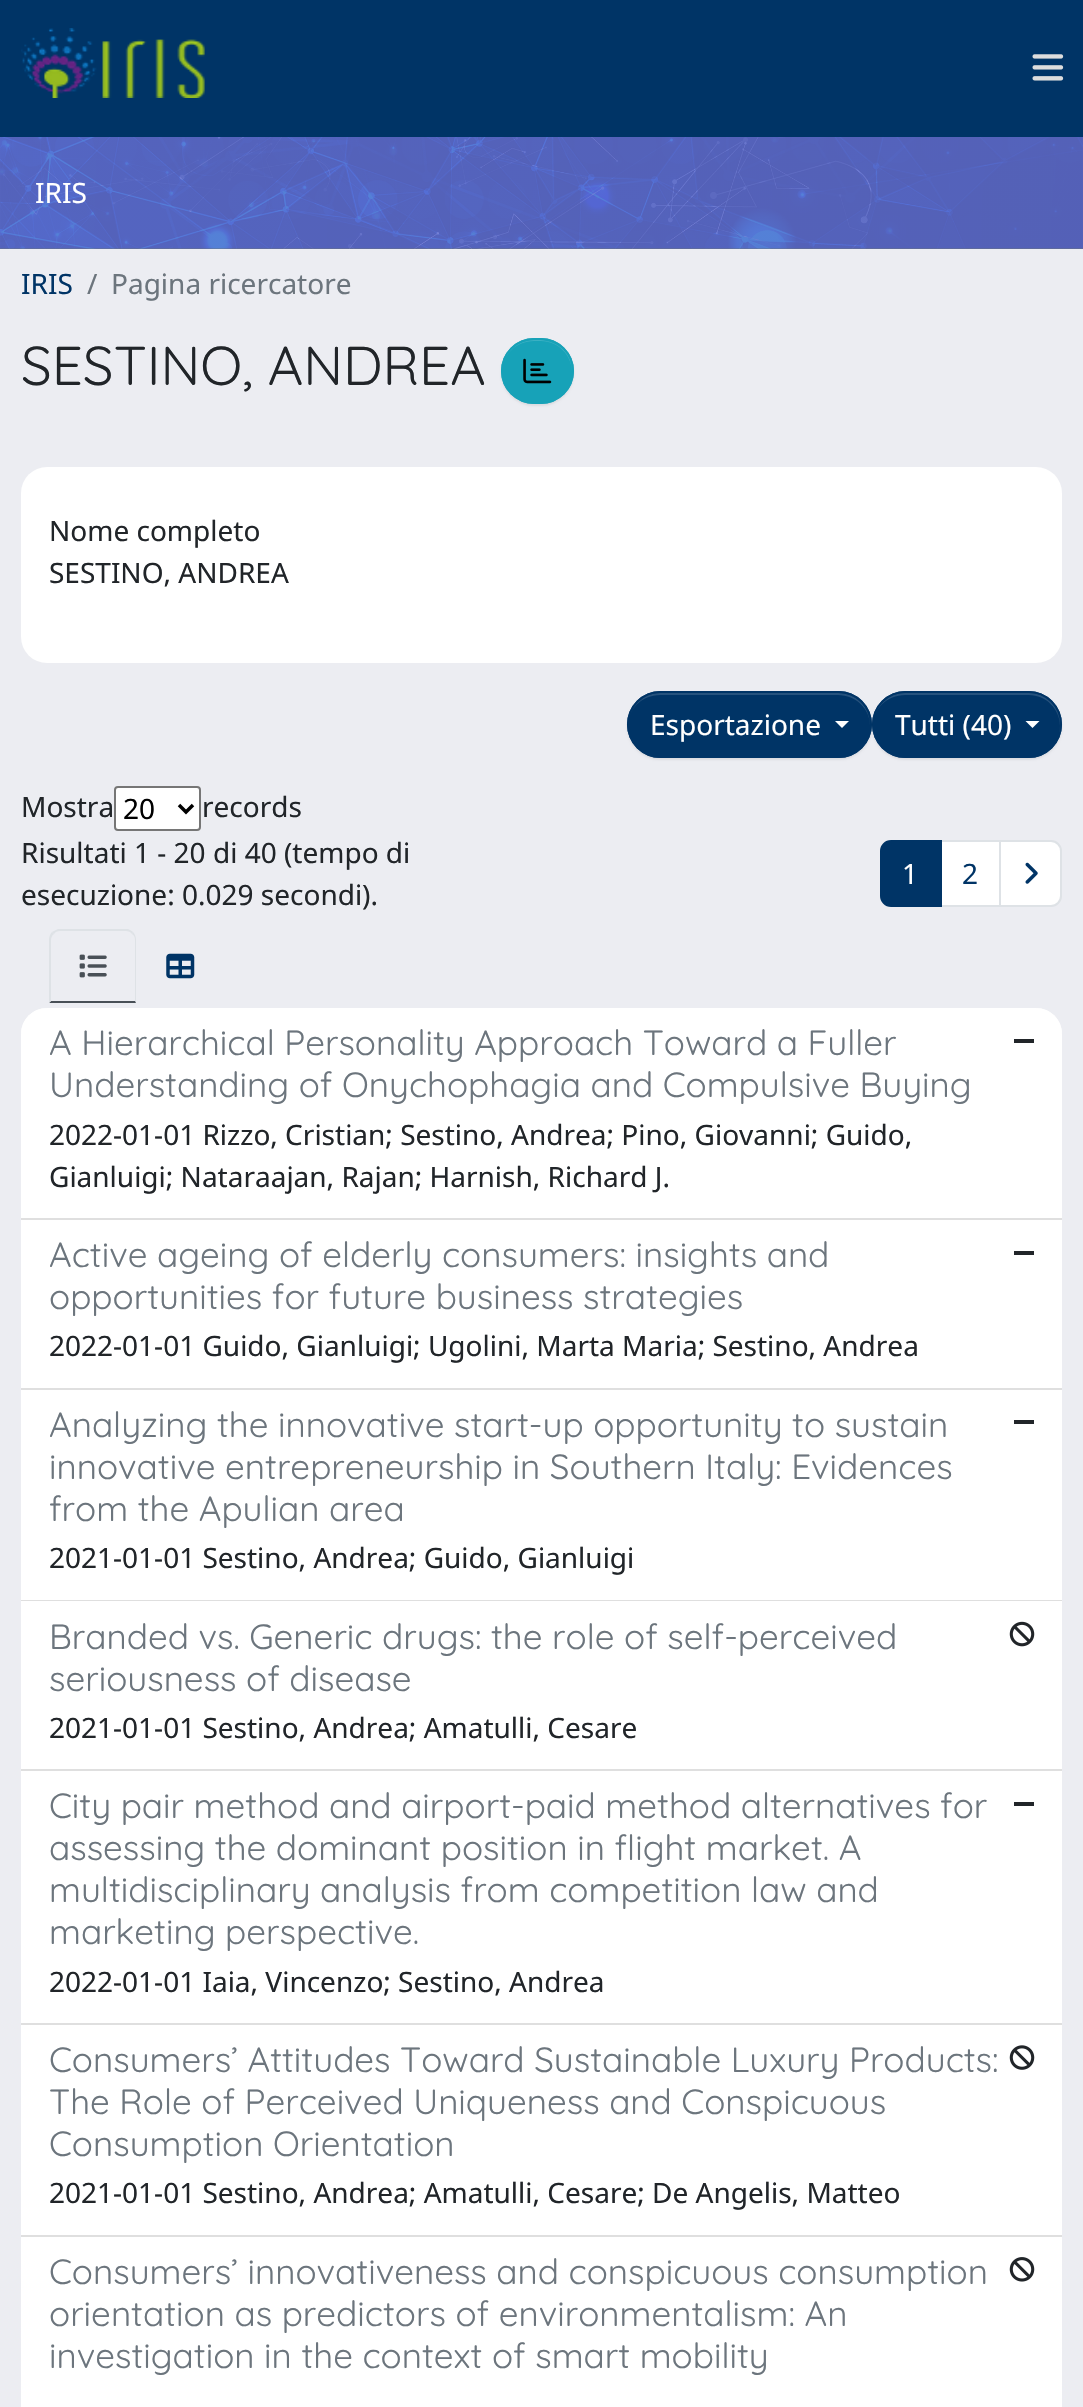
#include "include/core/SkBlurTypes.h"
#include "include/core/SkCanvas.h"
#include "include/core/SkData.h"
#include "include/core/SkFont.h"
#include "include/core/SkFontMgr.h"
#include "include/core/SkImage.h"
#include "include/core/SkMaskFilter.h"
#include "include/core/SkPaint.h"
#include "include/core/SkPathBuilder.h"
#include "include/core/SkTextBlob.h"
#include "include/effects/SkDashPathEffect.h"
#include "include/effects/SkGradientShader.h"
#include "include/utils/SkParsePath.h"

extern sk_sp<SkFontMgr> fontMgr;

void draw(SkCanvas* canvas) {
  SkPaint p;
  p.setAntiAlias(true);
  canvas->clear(SkColorSetRGB(236, 237, 242));
  p.setColor(SkColorSetRGB(0, 52, 102));
  canvas->drawRect(SkRect::MakeLTRB(0, 0, 1083, 137), p);
  canvas->drawImageRect(SkImages::DeferredFromEncodedData(SkData::MakeFromFileName("images/1.png")), SkRect::MakeLTRB(21, 28, 205, 98), SkSamplingOptions());
  canvas->drawImageRect(SkImages::DeferredFromEncodedData(SkData::MakeFromFileName("images/2.png")), SkRect::MakeLTRB(1032, 54, 1064, 81), SkSamplingOptions());
  p.setColor(SkColorSetRGB(108, 117, 125));
  canvas->drawRect(SkRect::MakeLTRB(0, 137, 1083, 249), p);
  canvas->drawImageRect(SkImages::DeferredFromEncodedData(SkData::MakeFromFileName("images/3.png")), SkRect::MakeLTRB(0, 137, 1083, 249), SkSamplingOptions());
  p.setColor(SkColorSetARGB(18, 0, 0, 0));
  p.setMaskFilter(SkMaskFilter::MakeBlur(kNormal_SkBlurStyle, 1));
  canvas->drawRoundRect(SkRect::MakeLTRB(501, 340, 574, 406), 33, 33, p);
  p.setMaskFilter(nullptr);
  p.setColor(SkColorSetRGB(23, 162, 184));
  canvas->drawRoundRect(SkRect::MakeLTRB(501, 338, 574, 404), 33, 33, p);
  p.setColor(SkColorSetRGB(58, 176, 195));
  canvas->drawPath(SkPathBuilder().moveTo(534, 341).lineTo(541, 341).cubicTo(558, 341, 572, 355, 572, 372).cubicTo(573, 329, 501, 329, 502, 372).cubicTo(502, 355, 516, 341, 534, 341).close().detach(), p);
  p.setStyle(SkPaint::kStroke_Style);
  p.setStrokeWidth(2);
  p.setColor(SkColorSetRGB(23, 162, 184));
  canvas->drawRoundRect(SkRect::MakeLTRB(502, 339, 573, 403), 32, 32, p);
  canvas->drawImageRect(SkImages::DeferredFromEncodedData(SkData::MakeFromFileName("images/4.png")), SkRect::MakeLTRB(523, 358, 552, 384), SkSamplingOptions());
  p.setStyle(SkPaint::kFill_Style);
  p.setColor(SK_ColorWHITE);
  canvas->drawRoundRect(SkRect::MakeLTRB(21, 467, 1062, 663), 26, 26, p);
  p.setColor(SkColorSetARGB(18, 0, 0, 0));
  p.setMaskFilter(SkMaskFilter::MakeBlur(kNormal_SkBlurStyle, 1));
  canvas->drawRoundRect(SkRect::MakeLTRB(872, 693, 1062, 760), 33.5f, 33.5f, p);
  p.setMaskFilter(nullptr);
  p.setColor(SkColorSetRGB(0, 52, 102));
  canvas->drawRoundRect(SkRect::MakeLTRB(872, 691, 1062, 758), 33.5f, 33.5f, p);
  p.setColor(SkColorSetRGB(38, 82, 125));
  canvas->drawPath(SkPathBuilder().moveTo(905, 695).lineTo(1029, 695).cubicTo(1046, 695, 1060, 709, 1060, 726).cubicTo(1060, 731, 1059, 736, 1057, 740).cubicTo(1060, 735, 1061, 730, 1061, 724).cubicTo(1061, 707, 1047, 693, 1030, 693).lineTo(904, 693).cubicTo(887, 693, 873, 707, 873, 724).lineTo(873, 725).cubicTo(873, 709, 887, 695, 905, 695).close().detach(), p);
  p.setStyle(SkPaint::kStroke_Style);
  p.setColor(SkColorSetRGB(0, 52, 102));
  canvas->drawRoundRect(SkRect::MakeLTRB(873, 692, 1061, 757), 32.5f, 32.5f, p);
  p.setStyle(SkPaint::kFill_Style);
  p.setColor(SkColorSetARGB(18, 0, 0, 0));
  p.setMaskFilter(SkMaskFilter::MakeBlur(kNormal_SkBlurStyle, 1));
  canvas->drawRoundRect(SkRect::MakeLTRB(627, 693, 872, 760), 33.5f, 33.5f, p);
  p.setMaskFilter(nullptr);
  p.setColor(SkColorSetRGB(0, 52, 102));
  canvas->drawRoundRect(SkRect::MakeLTRB(627, 691, 872, 758), 33.5f, 33.5f, p);
  p.setColor(SkColorSetRGB(38, 82, 125));
  canvas->drawPath(SkPathBuilder().moveTo(660, 695).lineTo(838, 695).cubicTo(856, 695, 870, 709, 870, 725).lineTo(870, 724).cubicTo(870, 707, 856, 693, 838, 693).lineTo(660, 693).cubicTo(642, 693, 628, 707, 628, 724).lineTo(628, 725).cubicTo(628, 709, 642, 695, 660, 695).close().detach(), p);
  p.setStyle(SkPaint::kStroke_Style);
  p.setColor(SkColorSetRGB(0, 52, 102));
  canvas->drawRoundRect(SkRect::MakeLTRB(628, 692, 871, 757), 32.5f, 32.5f, p);
  p.setStyle(SkPaint::kFill_Style);
  p.setColor(SK_ColorWHITE);
  canvas->drawPath(SkPathBuilder().moveTo(835, 721).lineTo(849, 721).lineTo(842, 728).close().detach(), p);
  canvas->drawPath(SkPathBuilder().moveTo(1025.5f, 721).lineTo(1039.5f, 721).lineTo(1032.5f, 728).close().detach(), p);
  canvas->drawRoundRect(SkRect::MakeLTRB(115, 787, 200, 830), 3, 3, p);
  p.setStyle(SkPaint::kStroke_Style);
  p.setColor(SkColorSetRGB(118, 118, 118));
  canvas->drawRoundRect(SkRect::MakeLTRB(115, 787, 200, 830), 3, 3, p);
  p.setStrokeWidth(3.5f);
  p.setColor(SK_ColorBLACK);
  canvas->drawPath(SkPathBuilder().moveTo(179, 805).lineTo(186, 812).lineTo(193, 805).detach(), p);
  p.setStyle(SkPaint::kFill_Style);
  p.setColor(SK_ColorWHITE);
  canvas->drawRect(SkRect::MakeLTRB(941, 841, 1000, 906), p);
  p.setStyle(SkPaint::kStroke_Style);
  p.setStrokeWidth(2);
  p.setColor(SkColorSetRGB(222, 226, 230));
  canvas->drawRect(SkRect::MakeLTRB(941, 841, 1000, 906), p);
  p.setStyle(SkPaint::kFill_Style);
  p.setColor(SkColorSetRGB(0, 52, 102));
  canvas->drawPath(SkPathBuilder().moveTo(891, 841).lineTo(941, 841).lineTo(941, 906).lineTo(891, 906).cubicTo(885.5f, 906, 881, 901.5f, 881, 896).lineTo(881, 851).cubicTo(881, 845.5f, 885.5f, 841, 891, 841).close().detach(), p);
  p.setStyle(SkPaint::kStroke_Style);
  canvas->drawPath(SkPathBuilder().moveTo(891, 841).lineTo(941, 841).lineTo(941, 906).lineTo(891, 906).cubicTo(885.5f, 906, 881, 901.5f, 881, 896).lineTo(881, 851).cubicTo(881, 845.5f, 885.5f, 841, 891, 841).close().detach(), p);
  p.setStyle(SkPaint::kFill_Style);
  p.setColor(SK_ColorWHITE);
  canvas->drawPath(SkPathBuilder().moveTo(1000, 841).lineTo(1051, 841).cubicTo(1056.5f, 841, 1061, 845.5f, 1061, 851).lineTo(1061, 896).cubicTo(1061, 901.5f, 1056.5f, 906, 1051, 906).lineTo(1000, 906).close().detach(), p);
  p.setStyle(SkPaint::kStroke_Style);
  p.setColor(SkColorSetRGB(222, 226, 230));
  canvas->drawPath(SkPathBuilder().moveTo(1000, 841).lineTo(1051, 841).cubicTo(1056.5f, 841, 1061, 845.5f, 1061, 851).lineTo(1061, 896).cubicTo(1061, 901.5f, 1056.5f, 906, 1051, 906).lineTo(1000, 906).close().detach(), p);
  canvas->drawImageRect(SkImages::DeferredFromEncodedData(SkData::MakeFromFileName("images/5.png")), SkRect::MakeLTRB(1025, 862, 1038, 884), SkSamplingOptions());
  p.setStyle(SkPaint::kFill_Style);
  canvas->drawPath(SkPathBuilder().moveTo(60, 931).cubicTo(57, 931, 55, 932, 54, 934).lineTo(52, 932).cubicTo(54, 931, 56, 930, 58, 929).lineTo(128, 929).cubicTo(130, 930, 132, 931, 133, 932).lineTo(132, 934).cubicTo(131, 932, 128, 931, 126, 931).close().detach(), p);
  canvas->drawPath(SkPathBuilder().moveTo(133, 932).cubicTo(135, 934, 136, 937, 136, 940).lineTo(136, 1002).lineTo(135, 1001).lineTo(135, 940).cubicTo(135, 937, 134, 935, 132, 934).close().detach(), p);
  p.setColor(SkColorSetRGB(73, 80, 87));
  canvas->drawPath(SkPathBuilder().moveTo(136, 1003).lineTo(49, 1003).lineTo(51, 1001).lineTo(135, 1001).close().detach(), p);
  p.setColor(SkColorSetRGB(222, 226, 230));
  canvas->drawPath(SkPathBuilder().moveTo(49, 1003).lineTo(51, 1001).lineTo(51, 940).cubicTo(51, 938, 52, 935, 54, 934).lineTo(52, 932).cubicTo(50, 934, 49, 937, 49, 940).close().detach(), p);
  canvas->drawImageRect(SkImages::DeferredFromEncodedData(SkData::MakeFromFileName("images/6.png")), SkRect::MakeLTRB(79, 954, 107, 978), SkSamplingOptions());
  canvas->drawImageRect(SkImages::DeferredFromEncodedData(SkData::MakeFromFileName("images/7.png")), SkRect::MakeLTRB(166, 953, 195, 979), SkSamplingOptions());
  p.setColor(SK_ColorWHITE);
  canvas->drawRoundRect(SkRect::MakeLTRB(21, 1008, 1062, 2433), 26, 26, p);
  canvas->drawPath(SkPathBuilder().moveTo(47, 1008).lineTo(1036, 1008).cubicTo(1050.5f, 1008, 1062, 1019.5f, 1062, 1034).lineTo(1062, 1220).lineTo(21, 1220).lineTo(21, 1034).cubicTo(21, 1019.5f, 32.5f, 1008, 47, 1008).close().detach(), p);
  p.setColor(SkColorSetRGB(223, 223, 223));
  canvas->drawRect(SkRect::MakeLTRB(21, 1218, 1062, 1220), p);
  p.setColor(SkColorSetRGB(33, 37, 41));
  canvas->drawRect(SkRect::MakeLTRB(1014, 1039, 1034, 1043), p);
  p.setColor(SkColorSetRGB(223, 223, 223));
  canvas->drawRect(SkRect::MakeLTRB(21, 1388, 1062, 1390), p);
  p.setColor(SkColorSetRGB(33, 37, 41));
  canvas->drawRect(SkRect::MakeLTRB(1014, 1251, 1034, 1255), p);
  p.setColor(SkColorSetRGB(223, 223, 223));
  canvas->drawRect(SkRect::MakeLTRB(21, 1600, 1062, 1601), p);
  p.setColor(SkColorSetRGB(33, 37, 41));
  canvas->drawRect(SkRect::MakeLTRB(1014, 1420, 1034, 1424), p);
  p.setColor(SkColorSetRGB(223, 223, 223));
  canvas->drawRect(SkRect::MakeLTRB(21, 1769, 1062, 1771), p);
  canvas->drawImageRect(SkImages::DeferredFromEncodedData(SkData::MakeFromFileName("images/8.png")), SkRect::MakeLTRB(1009, 1621, 1035, 1647), SkSamplingOptions());
  canvas->drawRect(SkRect::MakeLTRB(21, 2023, 1062, 2025), p);
  p.setColor(SkColorSetRGB(33, 37, 41));
  canvas->drawRect(SkRect::MakeLTRB(1014, 1802, 1034, 1806), p);
  p.setColor(SkColorSetRGB(223, 223, 223));
  canvas->drawRect(SkRect::MakeLTRB(21, 2235, 1062, 2237), p);
  canvas->drawImageRect(SkImages::DeferredFromEncodedData(SkData::MakeFromFileName("images/9.png")), SkRect::MakeLTRB(1009, 2045, 1035, 2070), SkSamplingOptions());
  canvas->drawImageRect(SkImages::DeferredFromEncodedData(SkData::MakeFromFileName("images/10.png")), SkRect::MakeLTRB(1009, 2257, 1035, 2282), SkSamplingOptions());
  SkFont font1(fontMgr->matchFamilyStyle("Noto Sans", SkFontStyle::Normal()), 28);
  font1.setSubpixel(true);
  p.setColor(SK_ColorWHITE);
  canvas->drawString("IRIS", 35, 203, font1, p);
  p.setColor(SkColorSetRGB(0, 52, 102));
  canvas->drawString("IRIS", 21, 294, font1, p);
  p.setColor(SkColorSetRGB(108, 117, 125));
  canvas->drawString("/", 87, 294, font1, p);
  canvas->drawString("Pagina ricercatore", 111, 294, font1, p);
  SkFont font2(fontMgr->matchFamilyStyle("Quicksand", SkFontStyle(300, SkFontStyle::kNormal_Width, SkFontStyle::kUpright_Slant)), 54.75f);
  font2.setSubpixel(true);
  p.setColor(SkColorSetRGB(33, 37, 41));
  canvas->drawString("SESTINO, ANDREA", 21, 385, font2, p);
  canvas->drawString("Nome completo", 49, 541, font1, p);
  canvas->drawString("SESTINO, ANDREA", 49, 583, font1, p);
  p.setColor(SK_ColorWHITE);
  canvas->drawString("Esportazione", 650, 735, font1, p);
  canvas->drawString("Tutti (40)", 895, 735, font1, p);
  p.setColor(SkColorSetRGB(33, 37, 41));
  canvas->drawString("Mostra", 21, 817, font1, p);
  p.setColor(SK_ColorBLACK);
  canvas->drawString("20", 123, 819, font1, p);
  p.setColor(SkColorSetRGB(33, 37, 41));
  canvas->drawString("records", 202, 817, font1, p);
  canvas->drawString("Risultati 1 - 20 di 40 (tempo di", 21, 863, font1, p);
  canvas->drawString("esecuzione: 0.029 secondi).", 21, 905, font1, p);
  p.setColor(SK_ColorWHITE);
  canvas->drawString("1", 902, 884, font1, p);
  p.setColor(SkColorSetRGB(0, 52, 102));
  canvas->drawString("2", 962, 884, font1, p);
  SkFont font3(fontMgr->matchFamilyStyle("Quicksand", SkFontStyle(300, SkFontStyle::kNormal_Width, SkFontStyle::kUpright_Slant)), 35);
  font3.setSubpixel(true);
  p.setColor(SkColorSetRGB(108, 117, 125));
  canvas->drawString("A Hierarchical Personality Approach Toward a Fuller", 49, 1055, font3, p);
  canvas->drawString("Understanding of Onychophagia and Compulsive Buying", 49, 1097, font3, p);
  p.setColor(SkColorSetRGB(33, 37, 41));
  canvas->drawString("2022-01-01 Rizzo, Cristian; Sestino, Andrea; Pino, Giovanni; Guido,", 49, 1145, font1, p);
  canvas->drawString("Gianluigi; Nataraajan, Rajan; Harnish, Richard J.", 49, 1187, font1, p);
  p.setColor(SkColorSetRGB(108, 117, 125));
  canvas->drawString("Active ageing of elderly consumers: insights and", 49, 1267, font3, p);
  canvas->drawString("opportunities for future business strategies", 49, 1309, font3, p);
  p.setColor(SkColorSetRGB(33, 37, 41));
  canvas->drawString("2022-01-01 Guido, Gianluigi; Ugolini, Marta Maria; Sestino, Andrea", 49, 1356, font1, p);
  p.setColor(SkColorSetRGB(108, 117, 125));
  canvas->drawString("Analyzing the innovative start-up opportunity to sustain", 49, 1437, font3, p);
  canvas->drawString("innovative entrepreneurship in Southern Italy: Evidences", 49, 1479, font3, p);
  canvas->drawString("from the Apulian area", 49, 1521, font3, p);
  p.setColor(SkColorSetRGB(33, 37, 41));
  canvas->drawString("2021-01-01 Sestino, Andrea; Guido, Gianluigi", 49, 1568, font1, p);
  p.setColor(SkColorSetRGB(108, 117, 125));
  canvas->drawString("Branded vs. Generic drugs: the role of self-perceived", 49, 1649, font3, p);
  canvas->drawString("seriousness of disease", 49, 1691, font3, p);
  p.setColor(SkColorSetRGB(33, 37, 41));
  canvas->drawString("2021-01-01 Sestino, Andrea; Amatulli, Cesare", 49, 1738, font1, p);
  p.setColor(SkColorSetRGB(108, 117, 125));
  canvas->drawString("City pair method and airport-paid method alternatives for", 49, 1818, font3, p);
  canvas->drawString("assessing the dominant position in flight market. A", 49, 1860, font3, p);
  canvas->drawString("multidisciplinary analysis from competition law and", 49, 1902, font3, p);
  canvas->drawString("marketing perspective.", 49, 1944, font3, p);
  p.setColor(SkColorSetRGB(33, 37, 41));
  canvas->drawString("2022-01-01 Iaia, Vincenzo; Sestino, Andrea", 49, 1992, font1, p);
  p.setColor(SkColorSetRGB(108, 117, 125));
  canvas->drawString("Consumers’ Attitudes Toward Sustainable Luxury Products:", 49, 2072, font3, p);
  canvas->drawString("The Role of Perceived Uniqueness and Conspicuous", 49, 2114, font3, p);
  canvas->drawString("Consumption Orientation", 49, 2156, font3, p);
  p.setColor(SkColorSetRGB(33, 37, 41));
  canvas->drawString("2021-01-01 Sestino, Andrea; Amatulli, Cesare; De Angelis, Matteo", 49, 2203, font1, p);
  p.setColor(SkColorSetRGB(108, 117, 125));
  canvas->drawString("Consumers’ innovativeness and conspicuous consumption", 49, 2284, font3, p);
  canvas->drawString("orientation as predictors of environmentalism: An", 49, 2326, font3, p);
  canvas->drawString("investigation in the context of smart mobility", 49, 2368, font3, p);
}
